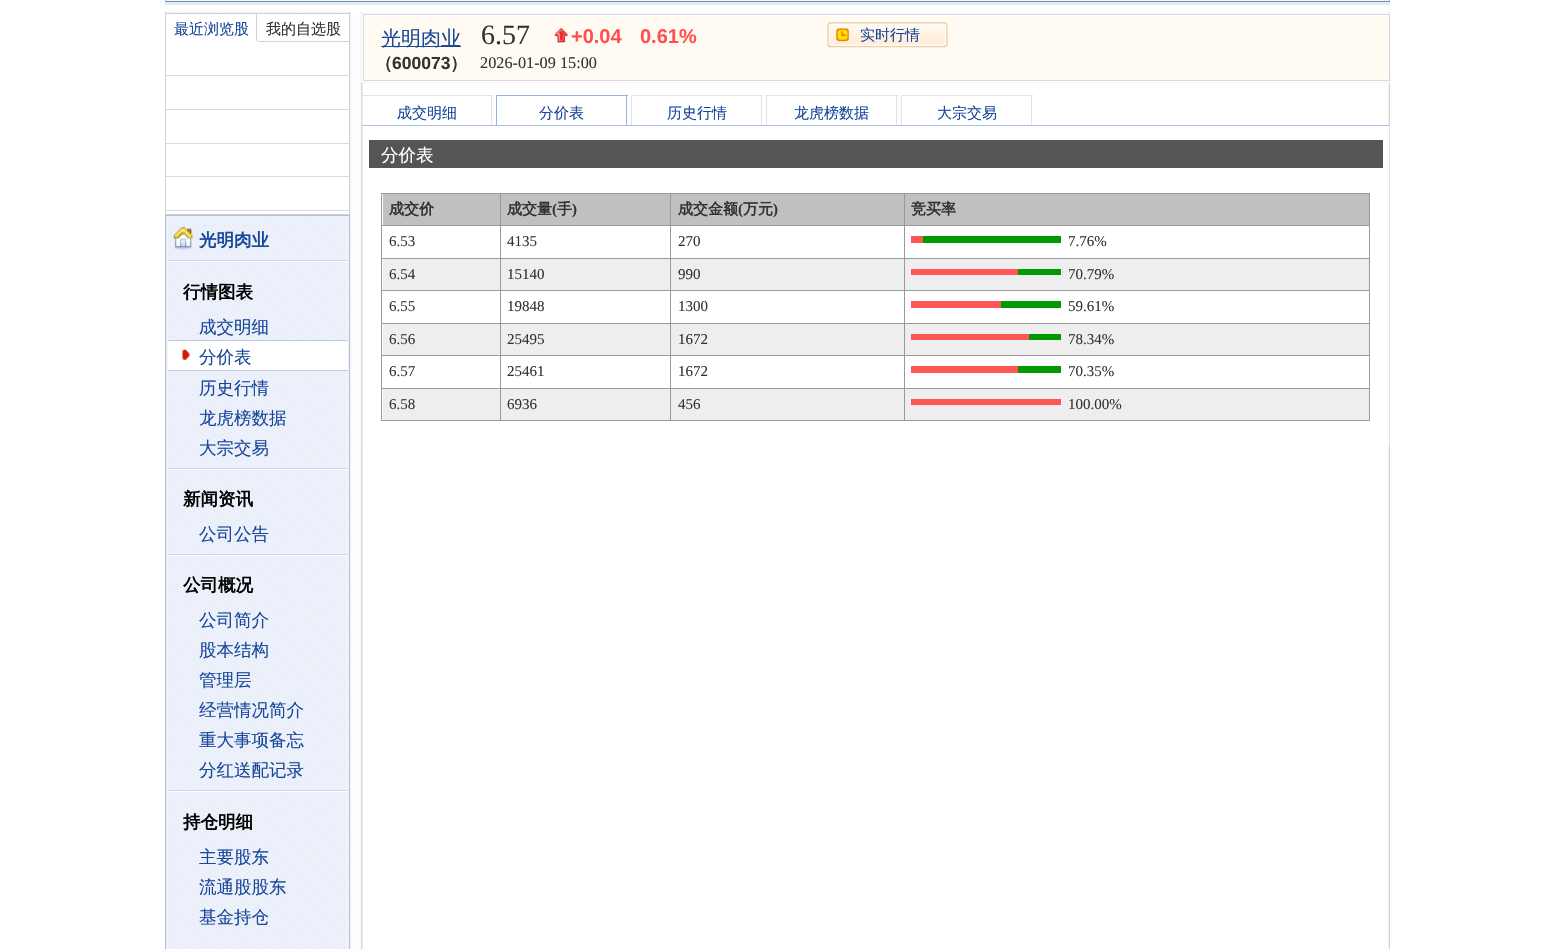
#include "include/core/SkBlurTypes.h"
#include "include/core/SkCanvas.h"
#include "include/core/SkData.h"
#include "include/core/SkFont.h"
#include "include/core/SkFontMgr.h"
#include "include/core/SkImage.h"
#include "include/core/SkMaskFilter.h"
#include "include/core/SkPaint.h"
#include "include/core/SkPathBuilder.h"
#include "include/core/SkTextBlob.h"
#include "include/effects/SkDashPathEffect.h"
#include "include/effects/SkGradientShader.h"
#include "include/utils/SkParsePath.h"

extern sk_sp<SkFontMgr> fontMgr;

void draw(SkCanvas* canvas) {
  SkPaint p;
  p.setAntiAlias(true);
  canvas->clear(SK_ColorWHITE);
  p.setColor(SkColorSetRGB(244, 247, 251));
  canvas->drawRect(SkRect::MakeLTRB(165, 0, 1390, 1), p);
  p.setColor(SkColorSetRGB(155, 183, 222));
  canvas->drawRect(SkRect::MakeLTRB(1389, 0, 1390, 3), p);
  p.setColor(SkColorSetRGB(117, 143, 185));
  canvas->drawRect(SkRect::MakeLTRB(165, 1, 1390, 2), p);
  p.setColor(SkColorSetRGB(155, 183, 222));
  canvas->drawRect(SkRect::MakeLTRB(165, 0, 166, 3), p);
  p.setColor(SkColorSetRGB(231, 234, 239));
  canvas->drawRect(SkRect::MakeLTRB(165, 2, 1390, 5), p);
  canvas->drawImageRect(SkImages::DeferredFromEncodedData(SkData::MakeFromFileName("images/1.png")), SkRect::MakeLTRB(165, 12, 1390, 949), SkSamplingOptions());
  p.setColor(SK_ColorWHITE);
  canvas->drawRect(SkRect::MakeLTRB(165.5f, 13.5f, 349.5f, 214.5f), p);
  p.setStyle(SkPaint::kStroke_Style);
  p.setStrokeWidth(1);
  p.setColor(SkColorSetRGB(210, 210, 210));
  canvas->drawRect(SkRect::MakeLTRB(165.5f, 13.5f, 349.5f, 214.5f), p);
  p.setStyle(SkPaint::kFill_Style);
  canvas->drawRect(SkRect::MakeLTRB(258, 41, 349, 42), p);
  canvas->drawRect(SkRect::MakeLTRB(256, 14, 257, 41), p);
  p.setColor(SkColorSetRGB(217, 217, 217));
  canvas->drawRect(SkRect::MakeLTRB(166, 75, 350, 76), p);
  canvas->drawRect(SkRect::MakeLTRB(166, 109, 350, 110), p);
  canvas->drawRect(SkRect::MakeLTRB(166, 143, 350, 144), p);
  canvas->drawRect(SkRect::MakeLTRB(166, 176, 350, 177), p);
  canvas->drawRect(SkRect::MakeLTRB(166, 210, 350, 211), p);
  p.setColor(SkColorSetRGB(177, 193, 220));
  canvas->drawRect(SkRect::MakeLTRB(165, 215, 350, 216), p);
  p.setColor(SkColorSetRGB(200, 215, 240));
  canvas->drawRect(SkRect::MakeLTRB(168, 260, 348, 261), p);
  canvas->drawImageRect(SkImages::DeferredFromEncodedData(SkData::MakeFromFileName("images/2.png")), SkRect::MakeLTRB(173, 227, 193, 250), SkSamplingOptions());
  p.setColor(SkColorSetRGB(254, 254, 254));
  canvas->drawRect(SkRect::MakeLTRB(168, 261, 348, 262), p);
  p.setColor(SkColorSetRGB(200, 215, 240));
  canvas->drawRect(SkRect::MakeLTRB(168, 468, 348, 469), p);
  p.setColor(SK_ColorWHITE);
  canvas->drawRect(SkRect::MakeLTRB(168, 341, 348, 370), p);
  canvas->drawImageRect(SkImages::DeferredFromEncodedData(SkData::MakeFromFileName("images/3.png")), SkRect::MakeLTRB(182, 349, 191, 360), SkSamplingOptions());
  p.setColor(SkColorSetRGB(192, 204, 225));
  canvas->drawRect(SkRect::MakeLTRB(168, 340, 348, 341), p);
  canvas->drawRect(SkRect::MakeLTRB(168, 370, 348, 371), p);
  p.setColor(SkColorSetRGB(254, 254, 254));
  canvas->drawRect(SkRect::MakeLTRB(168, 469, 348, 470), p);
  p.setColor(SkColorSetRGB(200, 215, 240));
  canvas->drawRect(SkRect::MakeLTRB(168, 554, 348, 555), p);
  p.setColor(SkColorSetRGB(254, 254, 254));
  canvas->drawRect(SkRect::MakeLTRB(168, 555, 348, 556), p);
  p.setColor(SkColorSetRGB(200, 215, 240));
  canvas->drawRect(SkRect::MakeLTRB(168, 790, 348, 791), p);
  p.setColor(SkColorSetRGB(254, 254, 254));
  canvas->drawRect(SkRect::MakeLTRB(168, 791, 348, 792), p);
  p.setColor(SK_ColorWHITE);
  canvas->drawRect(SkRect::MakeLTRB(361.5f, 13.5f, 1390.5f, 82.5f), p);
  p.setStyle(SkPaint::kStroke_Style);
  p.setColor(SkColorSetRGB(246, 246, 246));
  canvas->drawRect(SkRect::MakeLTRB(361.5f, 13.5f, 1390.5f, 82.5f), p);
  p.setColor(SkColorSetRGB(217, 217, 217));
  canvas->drawRect(SkRect::MakeLTRB(363.5f, 14.5f, 1389.5f, 80.5f), p);
  p.setStyle(SkPaint::kFill_Style);
  p.setColor(SkColorSetRGB(255, 251, 242));
  canvas->drawRect(SkRect::MakeLTRB(365, 16, 1388, 79), p);
  p.setColor(SkColorSetRGB(24, 71, 155));
  canvas->drawRect(SkRect::MakeLTRB(381, 46, 461, 47), p);
  canvas->drawImageRect(SkImages::DeferredFromEncodedData(SkData::MakeFromFileName("images/4.png")), SkRect::MakeLTRB(554, 28, 568, 43), SkSamplingOptions());
  canvas->drawImageRect(SkImages::DeferredFromEncodedData(SkData::MakeFromFileName("images/5.png")), SkRect::MakeLTRB(827, 22, 948, 48), SkSamplingOptions());
  p.setColor(SkColorSetRGB(227, 227, 227));
  canvas->drawRect(SkRect::MakeLTRB(361, 95, 493, 96), p);
  canvas->drawRect(SkRect::MakeLTRB(491, 95, 492, 125), p);
  canvas->drawRect(SkRect::MakeLTRB(361, 95, 362, 125), p);
  p.setColor(SkColorSetRGB(151, 177, 224));
  canvas->drawRect(SkRect::MakeLTRB(496, 95, 628, 96), p);
  canvas->drawRect(SkRect::MakeLTRB(626, 95, 627, 125), p);
  canvas->drawRect(SkRect::MakeLTRB(496, 95, 497, 125), p);
  p.setColor(SkColorSetRGB(227, 227, 227));
  canvas->drawRect(SkRect::MakeLTRB(631, 95, 763, 96), p);
  canvas->drawRect(SkRect::MakeLTRB(761, 95, 762, 125), p);
  canvas->drawRect(SkRect::MakeLTRB(631, 95, 632, 125), p);
  canvas->drawRect(SkRect::MakeLTRB(766, 95, 898, 96), p);
  canvas->drawRect(SkRect::MakeLTRB(896, 95, 897, 125), p);
  canvas->drawRect(SkRect::MakeLTRB(766, 95, 767, 125), p);
  canvas->drawRect(SkRect::MakeLTRB(901, 95, 1033, 96), p);
  canvas->drawRect(SkRect::MakeLTRB(1031, 95, 1032, 125), p);
  canvas->drawRect(SkRect::MakeLTRB(901, 95, 902, 125), p);
  p.setColor(SK_ColorWHITE);
  canvas->drawRect(SkRect::MakeLTRB(1388, 126, 1389, 446), p);
  p.setColor(SkColorSetRGB(168, 193, 229));
  canvas->drawRect(SkRect::MakeLTRB(361, 125, 1390, 126), p);
  p.setColor(SkColorSetRGB(226, 226, 226));
  canvas->drawRect(SkRect::MakeLTRB(1389, 125, 1390, 446), p);
  canvas->drawRect(SkRect::MakeLTRB(361, 125, 362, 446), p);
  p.setColor(SkColorSetRGB(85, 85, 85));
  canvas->drawRect(SkRect::MakeLTRB(369, 140, 1383, 168), p);
  p.setColor(SkColorSetRGB(192, 192, 192));
  canvas->drawRect(SkRect::MakeLTRB(383, 194, 500, 225), p);
  p.setColor(SkColorSetRGB(153, 153, 153));
  canvas->drawRect(SkRect::MakeLTRB(904, 193, 1370, 194), p);
  canvas->drawRect(SkRect::MakeLTRB(904, 225, 1370, 226), p);
  canvas->drawRect(SkRect::MakeLTRB(904, 258, 1370, 259), p);
  canvas->drawRect(SkRect::MakeLTRB(904, 290, 1370, 291), p);
  canvas->drawRect(SkRect::MakeLTRB(904, 323, 1370, 324), p);
  canvas->drawRect(SkRect::MakeLTRB(904, 355, 1370, 356), p);
  canvas->drawRect(SkRect::MakeLTRB(904, 388, 1370, 389), p);
  canvas->drawRect(SkRect::MakeLTRB(1369, 388, 1370, 421), p);
  canvas->drawRect(SkRect::MakeLTRB(904, 420, 1370, 421), p);
  canvas->drawRect(SkRect::MakeLTRB(904, 388, 905, 421), p);
  canvas->drawRect(SkRect::MakeLTRB(670, 388, 905, 389), p);
  canvas->drawRect(SkRect::MakeLTRB(904, 355, 905, 389), p);
  canvas->drawRect(SkRect::MakeLTRB(670, 355, 905, 356), p);
  canvas->drawRect(SkRect::MakeLTRB(904, 323, 905, 356), p);
  canvas->drawRect(SkRect::MakeLTRB(670, 323, 905, 324), p);
  canvas->drawRect(SkRect::MakeLTRB(904, 290, 905, 324), p);
  canvas->drawRect(SkRect::MakeLTRB(670, 290, 905, 291), p);
  canvas->drawRect(SkRect::MakeLTRB(904, 258, 905, 291), p);
  canvas->drawRect(SkRect::MakeLTRB(670, 258, 905, 259), p);
  canvas->drawRect(SkRect::MakeLTRB(904, 225, 905, 259), p);
  canvas->drawRect(SkRect::MakeLTRB(670, 225, 905, 226), p);
  canvas->drawRect(SkRect::MakeLTRB(904, 193, 905, 226), p);
  canvas->drawRect(SkRect::MakeLTRB(670, 193, 905, 194), p);
  canvas->drawRect(SkRect::MakeLTRB(670, 420, 905, 421), p);
  canvas->drawRect(SkRect::MakeLTRB(670, 388, 671, 421), p);
  canvas->drawRect(SkRect::MakeLTRB(500, 388, 671, 389), p);
  canvas->drawRect(SkRect::MakeLTRB(670, 355, 671, 389), p);
  canvas->drawRect(SkRect::MakeLTRB(500, 355, 671, 356), p);
  canvas->drawRect(SkRect::MakeLTRB(670, 323, 671, 356), p);
  canvas->drawRect(SkRect::MakeLTRB(500, 323, 671, 324), p);
  canvas->drawRect(SkRect::MakeLTRB(670, 290, 671, 324), p);
  canvas->drawRect(SkRect::MakeLTRB(500, 290, 671, 291), p);
  canvas->drawRect(SkRect::MakeLTRB(670, 258, 671, 291), p);
  canvas->drawRect(SkRect::MakeLTRB(500, 258, 671, 259), p);
  canvas->drawRect(SkRect::MakeLTRB(670, 225, 671, 259), p);
  canvas->drawRect(SkRect::MakeLTRB(500, 225, 671, 226), p);
  canvas->drawRect(SkRect::MakeLTRB(670, 193, 671, 226), p);
  canvas->drawRect(SkRect::MakeLTRB(500, 193, 671, 194), p);
  canvas->drawRect(SkRect::MakeLTRB(500, 420, 671, 421), p);
  canvas->drawRect(SkRect::MakeLTRB(500, 388, 501, 421), p);
  canvas->drawRect(SkRect::MakeLTRB(381, 388, 501, 389), p);
  canvas->drawRect(SkRect::MakeLTRB(500, 355, 501, 389), p);
  canvas->drawRect(SkRect::MakeLTRB(381, 355, 501, 356), p);
  canvas->drawRect(SkRect::MakeLTRB(500, 323, 501, 356), p);
  canvas->drawRect(SkRect::MakeLTRB(381, 323, 501, 324), p);
  canvas->drawRect(SkRect::MakeLTRB(500, 290, 501, 324), p);
  canvas->drawRect(SkRect::MakeLTRB(381, 290, 501, 291), p);
  canvas->drawRect(SkRect::MakeLTRB(500, 258, 501, 291), p);
  canvas->drawRect(SkRect::MakeLTRB(381, 258, 501, 259), p);
  canvas->drawRect(SkRect::MakeLTRB(500, 225, 501, 259), p);
  canvas->drawRect(SkRect::MakeLTRB(381, 225, 501, 226), p);
  canvas->drawRect(SkRect::MakeLTRB(500, 193, 501, 226), p);
  canvas->drawRect(SkRect::MakeLTRB(381, 193, 501, 194), p);
  canvas->drawRect(SkRect::MakeLTRB(381, 420, 501, 421), p);
  canvas->drawRect(SkRect::MakeLTRB(381, 388, 382, 421), p);
  canvas->drawRect(SkRect::MakeLTRB(381, 355, 382, 389), p);
  canvas->drawRect(SkRect::MakeLTRB(381, 323, 382, 356), p);
  canvas->drawRect(SkRect::MakeLTRB(381, 290, 382, 324), p);
  canvas->drawRect(SkRect::MakeLTRB(381, 258, 382, 291), p);
  canvas->drawRect(SkRect::MakeLTRB(381, 225, 382, 259), p);
  canvas->drawRect(SkRect::MakeLTRB(381, 193, 382, 226), p);
  p.setColor(SkColorSetRGB(192, 192, 192));
  canvas->drawRect(SkRect::MakeLTRB(501, 194, 670, 225), p);
  canvas->drawRect(SkRect::MakeLTRB(671, 194, 904, 225), p);
  canvas->drawRect(SkRect::MakeLTRB(905, 194, 1369, 225), p);
  p.setColor(SkColorSetRGB(153, 153, 153));
  canvas->drawRect(SkRect::MakeLTRB(1369, 355, 1370, 389), p);
  canvas->drawRect(SkRect::MakeLTRB(1369, 323, 1370, 356), p);
  canvas->drawRect(SkRect::MakeLTRB(1369, 290, 1370, 324), p);
  canvas->drawRect(SkRect::MakeLTRB(1369, 258, 1370, 291), p);
  canvas->drawRect(SkRect::MakeLTRB(1369, 225, 1370, 259), p);
  canvas->drawRect(SkRect::MakeLTRB(1369, 193, 1370, 226), p);
  p.setColor(SkColorSetRGB(0, 153, 0));
  canvas->drawRect(SkRect::MakeLTRB(923, 236, 1061, 243), p);
  p.setColor(SkColorSetRGB(255, 85, 85));
  canvas->drawRect(SkRect::MakeLTRB(911, 236, 923, 243), p);
  p.setColor(SkColorSetRGB(238, 238, 238));
  canvas->drawRect(SkRect::MakeLTRB(383, 259, 500, 290), p);
  canvas->drawRect(SkRect::MakeLTRB(501, 259, 670, 290), p);
  canvas->drawRect(SkRect::MakeLTRB(671, 259, 904, 290), p);
  canvas->drawRect(SkRect::MakeLTRB(905, 259, 1369, 290), p);
  p.setColor(SkColorSetRGB(0, 153, 0));
  canvas->drawRect(SkRect::MakeLTRB(1018, 269, 1061, 275), p);
  p.setColor(SkColorSetRGB(255, 85, 85));
  canvas->drawRect(SkRect::MakeLTRB(911, 269, 1018, 275), p);
  p.setColor(SkColorSetRGB(0, 153, 0));
  canvas->drawRect(SkRect::MakeLTRB(1001, 301, 1061, 308), p);
  p.setColor(SkColorSetRGB(255, 85, 85));
  canvas->drawRect(SkRect::MakeLTRB(911, 301, 1001, 308), p);
  p.setColor(SkColorSetRGB(238, 238, 238));
  canvas->drawRect(SkRect::MakeLTRB(383, 324, 500, 355), p);
  canvas->drawRect(SkRect::MakeLTRB(501, 324, 670, 355), p);
  canvas->drawRect(SkRect::MakeLTRB(671, 324, 904, 355), p);
  canvas->drawRect(SkRect::MakeLTRB(905, 324, 1369, 355), p);
  p.setColor(SkColorSetRGB(0, 153, 0));
  canvas->drawRect(SkRect::MakeLTRB(1029, 334, 1061, 340), p);
  p.setColor(SkColorSetRGB(255, 85, 85));
  canvas->drawRect(SkRect::MakeLTRB(911, 334, 1029, 340), p);
  p.setColor(SkColorSetRGB(0, 153, 0));
  canvas->drawRect(SkRect::MakeLTRB(1018, 366, 1061, 373), p);
  p.setColor(SkColorSetRGB(255, 85, 85));
  canvas->drawRect(SkRect::MakeLTRB(911, 366, 1018, 373), p);
  p.setColor(SkColorSetRGB(238, 238, 238));
  canvas->drawRect(SkRect::MakeLTRB(383, 389, 500, 420), p);
  canvas->drawRect(SkRect::MakeLTRB(501, 389, 670, 420), p);
  canvas->drawRect(SkRect::MakeLTRB(671, 389, 904, 420), p);
  canvas->drawRect(SkRect::MakeLTRB(905, 389, 1369, 420), p);
  p.setColor(SkColorSetRGB(255, 85, 85));
  canvas->drawRect(SkRect::MakeLTRB(911, 399, 1061, 405), p);
  SkFont font1(fontMgr->matchFamilyStyle("WenQuanYi Zen Hei", SkFontStyle(500, SkFontStyle::kNormal_Width, SkFontStyle::kUpright_Slant)), 15);
  font1.setSubpixel(true);
  p.setColor(SkColorSetRGB(24, 71, 155));
  canvas->drawString("最近浏览股", 174, 34, font1, p);
  p.setColor(SkColorSetRGB(51, 51, 51));
  canvas->drawString("我的自选股", 266, 34, font1, p);
  SkFont font2(fontMgr->matchFamilyStyle("WenQuanYi Zen Hei", SkFontStyle::Bold()), 17.5f);
  font2.setSubpixel(true);
  p.setColor(SkColorSetRGB(24, 71, 155));
  canvas->drawString("光明肉业", 199, 246, font2, p);
  p.setColor(SK_ColorBLACK);
  canvas->drawString("行情图表", 183, 298, font2, p);
  SkFont font3(fontMgr->matchFamilyStyle("WenQuanYi Zen Hei", SkFontStyle(500, SkFontStyle::kNormal_Width, SkFontStyle::kUpright_Slant)), 17.5f);
  font3.setSubpixel(true);
  p.setColor(SkColorSetRGB(24, 71, 155));
  canvas->drawString("成交明细", 199, 333, font3, p);
  canvas->drawString("分价表", 199, 363, font3, p);
  canvas->drawString("历史行情", 199, 394, font3, p);
  canvas->drawString("龙虎榜数据", 199, 424, font3, p);
  canvas->drawString("大宗交易", 199, 454, font3, p);
  p.setColor(SK_ColorBLACK);
  canvas->drawString("新闻资讯", 183, 505, font2, p);
  p.setColor(SkColorSetRGB(24, 71, 155));
  canvas->drawString("公司公告", 199, 540, font3, p);
  p.setColor(SK_ColorBLACK);
  canvas->drawString("公司概况", 183, 591, font2, p);
  p.setColor(SkColorSetRGB(24, 71, 155));
  canvas->drawString("公司简介", 199, 626, font3, p);
  canvas->drawString("股本结构", 199, 656, font3, p);
  canvas->drawString("管理层", 199, 686, font3, p);
  canvas->drawString("经营情况简介", 199, 716, font3, p);
  canvas->drawString("重大事项备忘", 199, 746, font3, p);
  canvas->drawString("分红送配记录", 199, 776, font3, p);
  p.setColor(SK_ColorBLACK);
  canvas->drawString("持仓明细", 183, 828, font2, p);
  p.setColor(SkColorSetRGB(24, 71, 155));
  canvas->drawString("主要股东", 199, 863, font3, p);
  canvas->drawString("流通股股东", 199, 893, font3, p);
  canvas->drawString("基金持仓", 199, 923, font3, p);
  SkFont font4(fontMgr->matchFamilyStyle("WenQuanYi Zen Hei", SkFontStyle(500, SkFontStyle::kNormal_Width, SkFontStyle::kUpright_Slant)), 20);
  font4.setSubpixel(true);
  canvas->drawString("光明肉业", 381, 45, font4, p);
  p.setColor(SkColorSetRGB(51, 51, 51));
  canvas->drawString("（", 375, 69, font2, p);
  SkFont font5(fontMgr->matchFamilyStyle("Liberation Sans", SkFontStyle::Bold()), 17.5f);
  font5.setSubpixel(true);
  canvas->drawString("600073", 392, 69, font5, p);
  canvas->drawString("）", 450, 69, font2, p);
  SkFont font6(fontMgr->matchFamilyStyle("Liberation Serif", SkFontStyle::Normal()), 28);
  font6.setSubpixel(true);
  canvas->drawString("6.57", 481, 44, font6, p);
  SkFont font7(fontMgr->matchFamilyStyle("Liberation Sans", SkFontStyle::Bold()), 20);
  font7.setSubpixel(true);
  p.setColor(SkColorSetRGB(255, 80, 80));
  canvas->drawString("+0.04", 571, 43, font7, p);
  canvas->drawString("0.61%", 640, 43, font7, p);
  p.setColor(SkColorSetRGB(24, 71, 155));
  canvas->drawString("实时行情", 860, 40, font1, p);
  SkFont font8(fontMgr->matchFamilyStyle("Liberation Serif", SkFontStyle::Normal()), 16.25f);
  font8.setSubpixel(true);
  p.setColor(SkColorSetRGB(51, 51, 51));
  canvas->drawString("2026-01-09 15:00", 480, 68, font8, p);
  p.setColor(SkColorSetRGB(24, 71, 155));
  canvas->drawString("成交明细", 397, 118, font1, p);
  canvas->drawString("分价表", 539, 118, font1, p);
  canvas->drawString("历史行情", 667, 118, font1, p);
  canvas->drawString("龙虎榜数据", 794, 118, font1, p);
  canvas->drawString("大宗交易", 937, 118, font1, p);
  p.setColor(SK_ColorWHITE);
  canvas->drawString("分价表", 381, 161, font3, p);
  SkFont font9(fontMgr->matchFamilyStyle("WenQuanYi Zen Hei", SkFontStyle::Bold()), 15);
  font9.setSubpixel(true);
  p.setColor(SkColorSetRGB(51, 51, 51));
  canvas->drawString("成交价", 389, 214, font9, p);
  canvas->drawString("成交量", 507, 214, font9, p);
  SkFont font10(fontMgr->matchFamilyStyle("Liberation Serif", SkFontStyle::Bold()), 15);
  font10.setSubpixel(true);
  canvas->drawString("(", 552, 214, font10, p);
  canvas->drawString("手", 557, 214, font9, p);
  canvas->drawString(")", 572, 214, font10, p);
  canvas->drawString("成交金额", 678, 214, font9, p);
  canvas->drawString("(", 738, 214, font10, p);
  canvas->drawString("万元", 743, 214, font9, p);
  canvas->drawString(")", 773, 214, font10, p);
  canvas->drawString("竞买率", 911, 214, font9, p);
  SkFont font11(fontMgr->matchFamilyStyle("Liberation Serif", SkFontStyle::Normal()), 15);
  font11.setSubpixel(true);
  canvas->drawString("6.53", 389, 246, font11, p);
  canvas->drawString("4135", 507, 246, font11, p);
  canvas->drawString("270", 678, 246, font11, p);
  canvas->drawString("7.76%", 1068, 246, font11, p);
  canvas->drawString("6.54", 389, 279, font11, p);
  canvas->drawString("15140", 507, 279, font11, p);
  canvas->drawString("990", 678, 279, font11, p);
  canvas->drawString("70.79%", 1068, 279, font11, p);
  canvas->drawString("6.55", 389, 311, font11, p);
  canvas->drawString("19848", 507, 311, font11, p);
  canvas->drawString("1300", 678, 311, font11, p);
  canvas->drawString("59.61%", 1068, 311, font11, p);
  canvas->drawString("6.56", 389, 344, font11, p);
  canvas->drawString("25495", 507, 344, font11, p);
  canvas->drawString("1672", 678, 344, font11, p);
  canvas->drawString("78.34%", 1068, 344, font11, p);
  canvas->drawString("6.57", 389, 376, font11, p);
  canvas->drawString("25461", 507, 376, font11, p);
  canvas->drawString("1672", 678, 376, font11, p);
  canvas->drawString("70.35%", 1068, 376, font11, p);
  canvas->drawString("6.58", 389, 409, font11, p);
  canvas->drawString("6936", 507, 409, font11, p);
  canvas->drawString("456", 678, 409, font11, p);
  canvas->drawString("100.00%", 1068, 409, font11, p);
}
